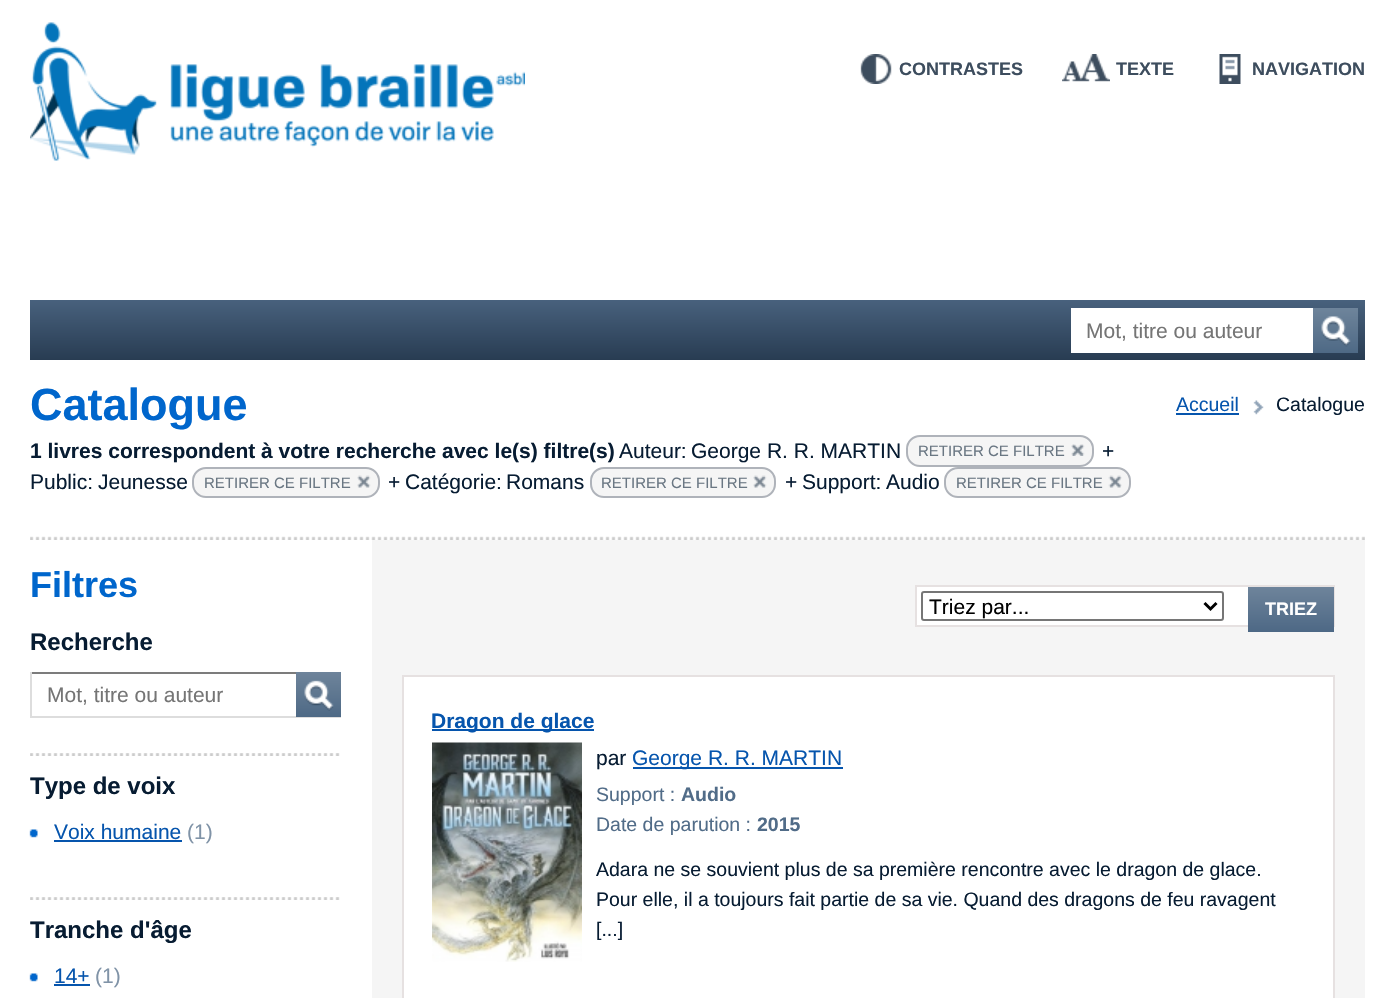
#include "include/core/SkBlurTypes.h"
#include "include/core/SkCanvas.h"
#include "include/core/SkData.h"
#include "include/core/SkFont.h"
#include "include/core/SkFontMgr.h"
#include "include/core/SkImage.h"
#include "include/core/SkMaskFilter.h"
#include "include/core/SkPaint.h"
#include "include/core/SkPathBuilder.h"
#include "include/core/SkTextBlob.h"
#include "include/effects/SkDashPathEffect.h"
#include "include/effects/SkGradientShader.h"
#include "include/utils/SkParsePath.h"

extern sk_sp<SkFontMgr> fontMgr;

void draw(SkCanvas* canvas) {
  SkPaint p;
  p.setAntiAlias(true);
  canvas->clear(SK_ColorWHITE);
  canvas->drawImageRect(SkImages::DeferredFromEncodedData(SkData::MakeFromFileName("images/1.png")), SkRect::MakeLTRB(30, 22, 525, 161), SkSamplingOptions());
  canvas->drawImageRect(SkImages::DeferredFromEncodedData(SkData::MakeFromFileName("images/2.png")), SkRect::MakeLTRB(860, 54, 892, 84), SkSamplingOptions());
  canvas->drawImageRect(SkImages::DeferredFromEncodedData(SkData::MakeFromFileName("images/3.png")), SkRect::MakeLTRB(1062, 54, 1110, 82), SkSamplingOptions());
  canvas->drawImageRect(SkImages::DeferredFromEncodedData(SkData::MakeFromFileName("images/4.png")), SkRect::MakeLTRB(1219, 54, 1241, 84), SkSamplingOptions());
  {
    const SkColor colors[] = {SkColorSetRGB(72, 97, 125), SkColorSetRGB(40, 60, 82)};
    const float stops[] = {0, 1};
    const SkPoint ends[] = {{698, 300}, {698, 360}};
    p.setShader(SkGradientShader::MakeLinear(ends, colors, stops, 2, SkTileMode::kClamp));
    p.setAlpha(255);
  }
  canvas->drawRect(SkRect::MakeLTRB(30, 300, 1365, 360), p);
  p.setShader(nullptr);
  p.setColor(SK_ColorWHITE);
  canvas->drawRect(SkRect::MakeLTRB(1071, 308, 1313, 353), p);
  {
    const SkColor colors[] = {SkColorSetRGB(110, 132, 155), SkColorSetRGB(78, 105, 133)};
    const float stops[] = {0, 1};
    const SkPoint ends[] = {{1335, 308}, {1335, 353}};
    p.setShader(SkGradientShader::MakeLinear(ends, colors, stops, 2, SkTileMode::kClamp));
    p.setAlpha(255);
  }
  canvas->drawRect(SkRect::MakeLTRB(1313, 308, 1358, 353), p);
  canvas->drawImageRect(SkImages::DeferredFromEncodedData(SkData::MakeFromFileName("images/5.png")), SkRect::MakeLTRB(1321, 316, 1351, 347), SkSamplingOptions());
  canvas->drawImageRect(SkImages::DeferredFromEncodedData(SkData::MakeFromFileName("images/6.png")), SkRect::MakeLTRB(30, 536, 1365, 540), SkSamplingOptions());
  p.setShader(nullptr);
  p.setColor(SkColorSetRGB(6, 85, 173));
  canvas->drawRect(SkRect::MakeLTRB(1176, 413, 1239, 415), p);
  canvas->drawImageRect(SkImages::DeferredFromEncodedData(SkData::MakeFromFileName("images/7.png")), SkRect::MakeLTRB(1253, 400, 1264, 415), SkSamplingOptions());
  p.setColor(SkColorSetRGB(245, 245, 245));
  canvas->drawRoundRect(SkRect::MakeLTRB(907, 436, 1093, 466), 13, 13, p);
  p.setStyle(SkPaint::kStroke_Style);
  p.setStrokeWidth(2);
  p.setColor(SkColorSetRGB(175, 179, 186));
  canvas->drawRoundRect(SkRect::MakeLTRB(907, 436, 1093, 466), 13, 13, p);
  canvas->drawImageRect(SkImages::DeferredFromEncodedData(SkData::MakeFromFileName("images/8.png")), SkRect::MakeLTRB(1071, 444, 1085, 456), SkSamplingOptions());
  p.setStyle(SkPaint::kFill_Style);
  p.setColor(SkColorSetRGB(245, 245, 245));
  canvas->drawRoundRect(SkRect::MakeLTRB(193, 468, 379, 497), 13, 13, p);
  p.setStyle(SkPaint::kStroke_Style);
  p.setColor(SkColorSetRGB(175, 179, 186));
  canvas->drawRoundRect(SkRect::MakeLTRB(193, 468, 379, 497), 13, 13, p);
  canvas->drawImageRect(SkImages::DeferredFromEncodedData(SkData::MakeFromFileName("images/9.png")), SkRect::MakeLTRB(357, 475, 371, 488), SkSamplingOptions());
  p.setStyle(SkPaint::kFill_Style);
  p.setColor(SkColorSetRGB(245, 245, 245));
  canvas->drawRoundRect(SkRect::MakeLTRB(591, 468, 775, 497), 13, 13, p);
  p.setStyle(SkPaint::kStroke_Style);
  p.setColor(SkColorSetRGB(175, 179, 186));
  canvas->drawRoundRect(SkRect::MakeLTRB(591, 468, 775, 497), 13, 13, p);
  canvas->drawImageRect(SkImages::DeferredFromEncodedData(SkData::MakeFromFileName("images/10.png")), SkRect::MakeLTRB(753, 475, 767, 488), SkSamplingOptions());
  p.setStyle(SkPaint::kFill_Style);
  p.setColor(SkColorSetRGB(245, 245, 245));
  canvas->drawRoundRect(SkRect::MakeLTRB(945, 468, 1130, 497), 13, 13, p);
  p.setStyle(SkPaint::kStroke_Style);
  p.setColor(SkColorSetRGB(175, 179, 186));
  canvas->drawRoundRect(SkRect::MakeLTRB(945, 468, 1130, 497), 13, 13, p);
  canvas->drawImageRect(SkImages::DeferredFromEncodedData(SkData::MakeFromFileName("images/11.png")), SkRect::MakeLTRB(1108, 475, 1122, 488), SkSamplingOptions());
  p.setStyle(SkPaint::kFill_Style);
  p.setColor(SkColorSetRGB(124, 124, 124));
  canvas->drawRect(SkRect::MakeLTRB(30, 672, 296, 674), p);
  p.setColor(SkColorSetRGB(221, 221, 221));
  canvas->drawRect(SkRect::MakeLTRB(30, 716, 341, 718), p);
  canvas->drawRect(SkRect::MakeLTRB(30, 672, 32, 717), p);
  {
    const SkColor colors[] = {SkColorSetRGB(110, 132, 155), SkColorSetRGB(78, 105, 133)};
    const float stops[] = {0, 1};
    const SkPoint ends[] = {{318, 672}, {318, 717}};
    p.setShader(SkGradientShader::MakeLinear(ends, colors, stops, 2, SkTileMode::kClamp));
    p.setAlpha(255);
  }
  canvas->drawRect(SkRect::MakeLTRB(296, 672, 341, 717), p);
  canvas->drawImageRect(SkImages::DeferredFromEncodedData(SkData::MakeFromFileName("images/12.png")), SkRect::MakeLTRB(304, 680, 334, 711), SkSamplingOptions());
  canvas->drawImageRect(SkImages::DeferredFromEncodedData(SkData::MakeFromFileName("images/13.png")), SkRect::MakeLTRB(30, 753, 340, 756), SkSamplingOptions());
  canvas->drawImageRect(SkImages::DeferredFromEncodedData(SkData::MakeFromFileName("images/14.png")), SkRect::MakeLTRB(29, 829, 38, 838), SkSamplingOptions());
  p.setShader(nullptr);
  p.setColor(SkColorSetRGB(6, 85, 173));
  canvas->drawRect(SkRect::MakeLTRB(54, 840, 182, 842), p);
  canvas->drawImageRect(SkImages::DeferredFromEncodedData(SkData::MakeFromFileName("images/15.png")), SkRect::MakeLTRB(30, 897, 340, 900), SkSamplingOptions());
  canvas->drawImageRect(SkImages::DeferredFromEncodedData(SkData::MakeFromFileName("images/14.png")), SkRect::MakeLTRB(29, 973, 38, 982), SkSamplingOptions());
  canvas->drawRect(SkRect::MakeLTRB(54, 984, 90, 986), p);
  p.setColor(SkColorSetRGB(245, 245, 245));
  canvas->drawRect(SkRect::MakeLTRB(372, 540, 1365, 998), p);
  p.setColor(SK_ColorWHITE);
  canvas->drawRect(SkRect::MakeLTRB(917, 587, 1248, 625), p);
  p.setStyle(SkPaint::kStroke_Style);
  p.setColor(SkColorSetRGB(230, 225, 225));
  canvas->drawRect(SkRect::MakeLTRB(916, 586, 1334, 626), p);
  p.setColor(SkColorSetRGB(118, 118, 118));
  canvas->drawRoundRect(SkRect::MakeLTRB(922, 592, 1223, 620), 2, 2, p);
  p.setStrokeWidth(3);
  p.setColor(SK_ColorBLACK);
  canvas->drawPath(SkPathBuilder().moveTo(1204.5f, 603).lineTo(1210.5f, 609).lineTo(1216.5f, 603).detach(), p);
  p.setStyle(SkPaint::kFill_Style);
  {
    const SkColor colors[] = {SkColorSetRGB(110, 132, 155), SkColorSetRGB(77, 104, 133)};
    const float stops[] = {0, 1};
    const SkPoint ends[] = {{1291, 587}, {1291, 632}};
    p.setShader(SkGradientShader::MakeLinear(ends, colors, stops, 2, SkTileMode::kClamp));
    p.setAlpha(255);
  }
  canvas->drawRect(SkRect::MakeLTRB(1248, 587, 1334, 632), p);
  p.setShader(nullptr);
  p.setColor(SK_ColorWHITE);
  canvas->drawRect(SkRect::MakeLTRB(403, 676, 1334, 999), p);
  p.setStyle(SkPaint::kStroke_Style);
  p.setStrokeWidth(2);
  p.setColor(SkColorSetRGB(230, 225, 225));
  canvas->drawRect(SkRect::MakeLTRB(403, 676, 1334, 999), p);
  p.setStyle(SkPaint::kFill_Style);
  p.setColor(SkColorSetRGB(6, 85, 173));
  canvas->drawRect(SkRect::MakeLTRB(432, 729, 594, 731), p);
  canvas->drawImageRect(SkImages::DeferredFromEncodedData(SkData::MakeFromFileName("images/16.png")), SkRect::MakeLTRB(432, 742, 582, 962), SkSamplingOptions());
  canvas->drawRect(SkRect::MakeLTRB(633, 767, 843, 769), p);
  SkFont font1(fontMgr->matchFamilyStyle("Liberation Sans", SkFontStyle::Bold()), 18);
  font1.setSubpixel(true);
  p.setColor(SkColorSetRGB(61, 77, 94));
  canvas->drawString("CONTRASTES", 899, 75, font1, p);
  canvas->drawString("TEXTE", 1116, 75, font1, p);
  canvas->drawString("NAVIGATION", 1252, 75, font1, p);
  SkFont font2(fontMgr->matchFamilyStyle("Liberation Sans", SkFontStyle::Normal()), 21);
  font2.setSubpixel(true);
  p.setColor(SkColorSetRGB(117, 117, 117));
  canvas->drawString("Mot, titre ou auteur", 1086, 338, font2, p);
  SkFont font3(fontMgr->matchFamilyStyle("Liberation Sans", SkFontStyle::Bold()), 45);
  font3.setSubpixel(true);
  p.setColor(SkColorSetRGB(0, 102, 204));
  canvas->drawString("Catalogue", 30, 420, font3, p);
  SkFont font4(fontMgr->matchFamilyStyle("Liberation Sans", SkFontStyle::Normal()), 19.5f);
  font4.setSubpixel(true);
  p.setColor(SkColorSetRGB(6, 85, 173));
  canvas->drawString("Accueil", 1176, 411, font4, p);
  p.setColor(SkColorSetRGB(7, 28, 50));
  canvas->drawString("Catalogue", 1276, 411, font4, p);
  SkFont font5(fontMgr->matchFamilyStyle("Liberation Sans", SkFontStyle::Bold()), 21);
  font5.setSubpixel(true);
  canvas->drawString("1 livres correspondent à votre recherche avec le(s) filtre(s)", 30, 458, font5, p);
  canvas->drawString("Auteur:", 619, 458, font2, p);
  canvas->drawString("George R. R. MARTIN", 691, 458, font2, p);
  SkFont font6(fontMgr->matchFamilyStyle("Liberation Sans", SkFontStyle::Normal()), 15);
  font6.setSubpixel(true);
  p.setColor(SkColorSetRGB(106, 119, 131));
  canvas->drawString("RETIRER CE FILTRE", 918, 456, font6, p);
  p.setColor(SkColorSetRGB(7, 28, 50));
  canvas->drawString("+", 1102, 458, font2, p);
  canvas->drawString("Public:", 30, 489, font2, p);
  canvas->drawString("Jeunesse", 98, 489, font2, p);
  p.setColor(SkColorSetRGB(106, 119, 131));
  canvas->drawString("RETIRER CE FILTRE", 204, 488, font6, p);
  p.setColor(SkColorSetRGB(7, 28, 50));
  canvas->drawString("+", 388, 489, font2, p);
  canvas->drawString("Catégorie:", 405, 489, font2, p);
  canvas->drawString("Romans", 506, 489, font2, p);
  p.setColor(SkColorSetRGB(106, 119, 131));
  canvas->drawString("RETIRER CE FILTRE", 601, 488, font6, p);
  p.setColor(SkColorSetRGB(7, 28, 50));
  canvas->drawString("+", 785, 489, font2, p);
  canvas->drawString("Support:", 802, 489, font2, p);
  canvas->drawString("Audio", 886, 489, font2, p);
  p.setColor(SkColorSetRGB(106, 119, 131));
  canvas->drawString("RETIRER CE FILTRE", 956, 488, font6, p);
  SkFont font7(fontMgr->matchFamilyStyle("Liberation Sans", SkFontStyle::Bold()), 36);
  font7.setSubpixel(true);
  p.setColor(SkColorSetRGB(0, 102, 204));
  canvas->drawString("Filtres", 30, 597, font7, p);
  SkFont font8(fontMgr->matchFamilyStyle("Liberation Sans", SkFontStyle::Bold()), 24);
  font8.setSubpixel(true);
  p.setColor(SkColorSetRGB(7, 28, 50));
  canvas->drawString("Recherche", 30, 650, font8, p);
  p.setColor(SkColorSetRGB(117, 117, 117));
  canvas->drawString("Mot, titre ou auteur", 47, 702, font2, p);
  p.setColor(SkColorSetRGB(7, 28, 50));
  canvas->drawString("Type de voix", 30, 794, font8, p);
  p.setColor(SkColorSetRGB(6, 85, 173));
  canvas->drawString("Voix humaine", 54, 839, font2, p);
  p.setColor(SkColorSetRGB(128, 147, 167));
  canvas->drawString("(1)", 187, 839, font2, p);
  p.setColor(SkColorSetRGB(7, 28, 50));
  canvas->drawString("Tranche d'âge", 30, 938, font8, p);
  p.setColor(SkColorSetRGB(6, 85, 173));
  canvas->drawString("14+", 54, 983, font2, p);
  p.setColor(SkColorSetRGB(128, 147, 167));
  canvas->drawString("(1)", 95, 983, font2, p);
  p.setColor(SK_ColorBLACK);
  canvas->drawString("Triez par...", 929, 614, font2, p);
  p.setColor(SK_ColorWHITE);
  canvas->drawString("TRIEZ", 1265, 615, font1, p);
  p.setColor(SkColorSetRGB(6, 85, 173));
  canvas->drawString("Dragon de glace", 431, 728, font5, p);
  p.setColor(SkColorSetRGB(7, 28, 50));
  canvas->drawString("par", 596, 765, font2, p);
  p.setColor(SkColorSetRGB(6, 85, 173));
  canvas->drawString("George R. R. MARTIN", 632, 765, font2, p);
  p.setColor(SkColorSetRGB(81, 108, 136));
  canvas->drawString("Support :", 596, 801, font4, p);
  SkFont font9(fontMgr->matchFamilyStyle("Liberation Sans", SkFontStyle::Bold()), 19.5f);
  font9.setSubpixel(true);
  canvas->drawString("Audio", 681, 801, font9, p);
  canvas->drawString("Date de parution :", 596, 831, font4, p);
  canvas->drawString("2015", 757, 831, font9, p);
  p.setColor(SkColorSetRGB(7, 28, 50));
  canvas->drawString("Adara ne se souvient plus de sa première rencontre avec le dragon de glace.", 596, 876, font4, p);
  canvas->drawString("Pour elle, il a toujours fait partie de sa vie. Quand des dragons de feu ravagent", 596, 906, font4, p);
  canvas->drawString("[...]", 596, 936, font4, p);
}
